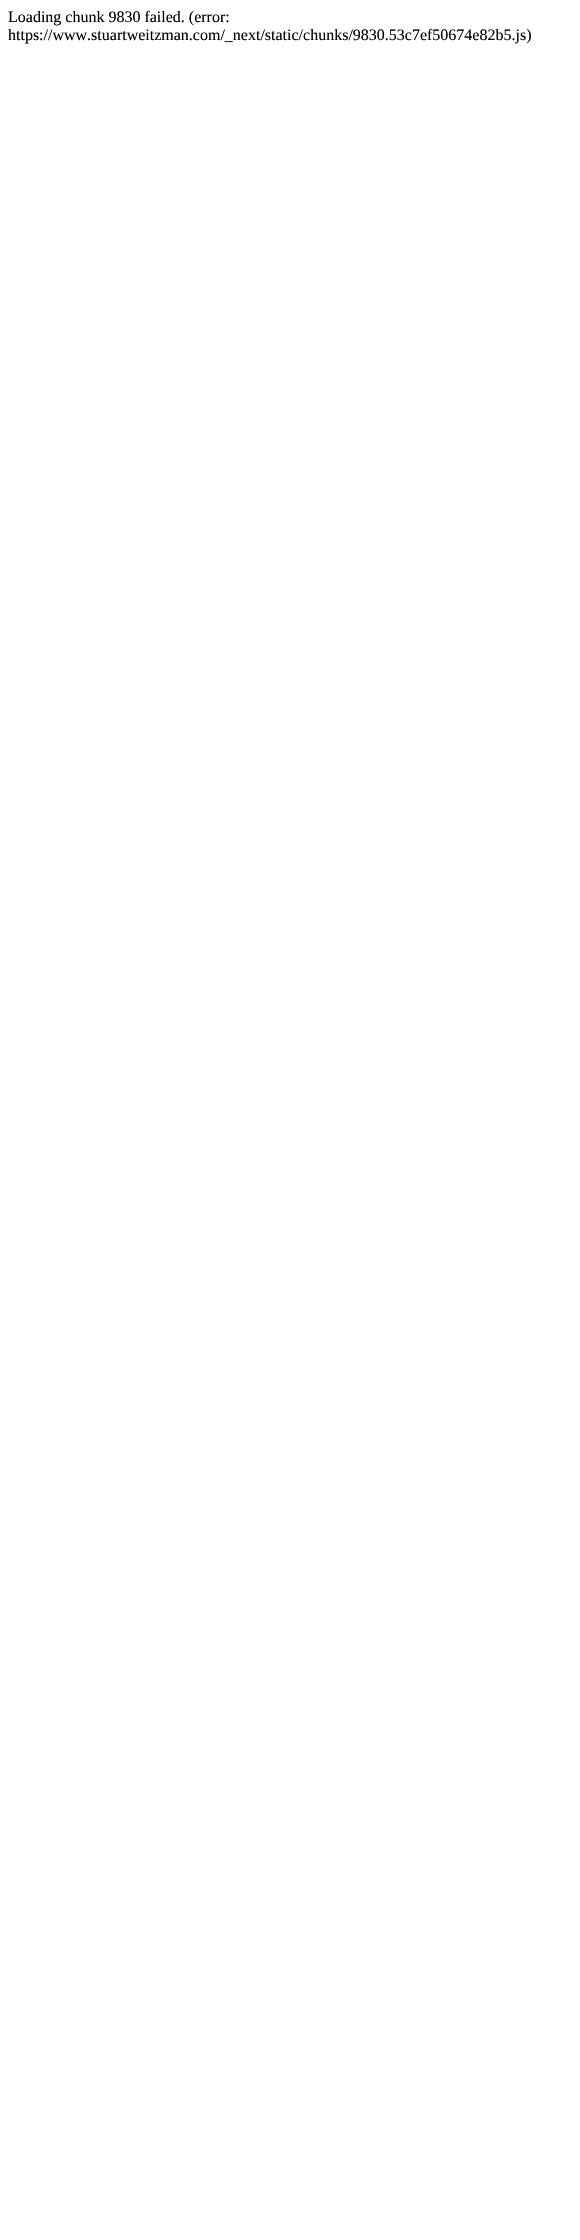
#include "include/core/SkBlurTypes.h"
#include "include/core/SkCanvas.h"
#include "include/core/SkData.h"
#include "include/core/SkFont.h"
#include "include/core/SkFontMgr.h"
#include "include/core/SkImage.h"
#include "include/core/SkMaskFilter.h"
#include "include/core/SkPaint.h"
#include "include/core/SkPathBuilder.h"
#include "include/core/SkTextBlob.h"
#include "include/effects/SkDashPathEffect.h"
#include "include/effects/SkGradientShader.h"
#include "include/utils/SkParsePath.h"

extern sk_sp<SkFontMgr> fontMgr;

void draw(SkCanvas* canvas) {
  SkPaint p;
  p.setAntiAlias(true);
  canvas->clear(SK_ColorWHITE);
  SkFont font1(fontMgr->matchFamilyStyle("Liberation Serif", SkFontStyle::Normal()), 16);
  font1.setSubpixel(true);
  p.setColor(SK_ColorBLACK);
  canvas->drawString("Loading chunk 9830 failed. (error:", 8, 22, font1, p);
  canvas->drawString("https://www.stuartweitzman.com/_next/static/chunks/9830.53c7ef50674e82b5.js)", 8, 40, font1, p);
}
